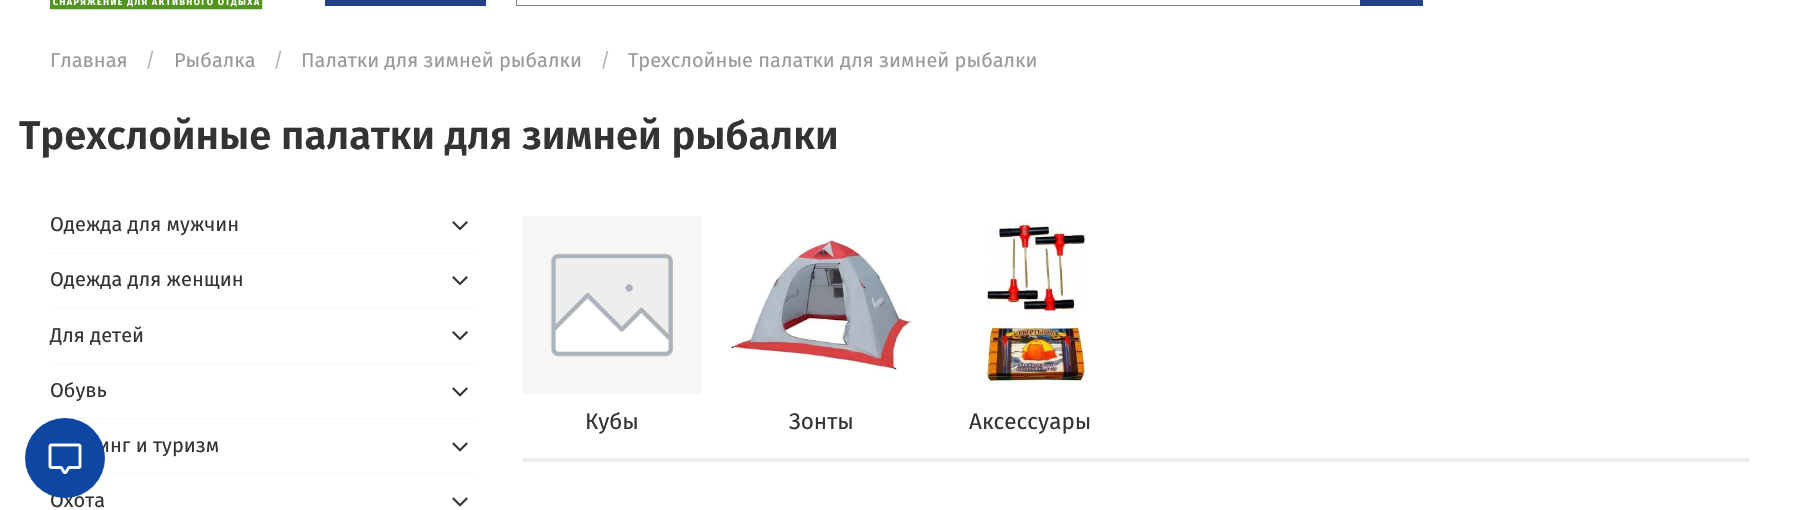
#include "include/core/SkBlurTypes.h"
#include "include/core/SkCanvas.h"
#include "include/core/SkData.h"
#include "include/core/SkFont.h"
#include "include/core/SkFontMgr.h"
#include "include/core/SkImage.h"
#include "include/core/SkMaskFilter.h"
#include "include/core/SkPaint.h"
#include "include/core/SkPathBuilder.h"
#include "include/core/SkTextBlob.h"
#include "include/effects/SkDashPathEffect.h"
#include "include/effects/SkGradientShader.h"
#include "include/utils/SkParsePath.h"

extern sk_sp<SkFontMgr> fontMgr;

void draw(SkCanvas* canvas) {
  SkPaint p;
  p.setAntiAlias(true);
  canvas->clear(SK_ColorWHITE);
  canvas->drawImageRect(SkImages::DeferredFromEncodedData(SkData::MakeFromFileName("images/1.png")), SkRect::MakeLTRB(50, 0, 263, 10), SkSamplingOptions());
  p.setColor(SkColorSetRGB(35, 66, 135));
  canvas->drawRect(SkRect::MakeLTRB(325, 0, 486, 6), p);
  p.setColor(SkColorSetRGB(128, 128, 128));
  canvas->drawRect(SkRect::MakeLTRB(516, 5, 1360, 6), p);
  canvas->drawRect(SkRect::MakeLTRB(516, 0, 517, 6), p);
  p.setColor(SkColorSetRGB(35, 66, 135));
  canvas->drawRect(SkRect::MakeLTRB(1360, 0, 1423, 6), p);
  p.setColor(SkColorSetRGB(247, 247, 247));
  canvas->drawRect(SkRect::MakeLTRB(50, 253, 475, 254), p);
  canvas->drawImageRect(SkImages::DeferredFromEncodedData(SkData::MakeFromFileName("images/2.png")), SkRect::MakeLTRB(452, 221, 468, 231), SkSamplingOptions());
  canvas->drawRect(SkRect::MakeLTRB(50, 308, 475, 309), p);
  canvas->drawImageRect(SkImages::DeferredFromEncodedData(SkData::MakeFromFileName("images/2.png")), SkRect::MakeLTRB(452, 276, 468, 286), SkSamplingOptions());
  canvas->drawRect(SkRect::MakeLTRB(50, 363, 475, 364), p);
  canvas->drawImageRect(SkImages::DeferredFromEncodedData(SkData::MakeFromFileName("images/2.png")), SkRect::MakeLTRB(452, 331, 468, 341), SkSamplingOptions());
  canvas->drawRect(SkRect::MakeLTRB(50, 418, 475, 419), p);
  canvas->drawImageRect(SkImages::DeferredFromEncodedData(SkData::MakeFromFileName("images/3.png")), SkRect::MakeLTRB(452, 387, 468, 397), SkSamplingOptions());
  canvas->drawRect(SkRect::MakeLTRB(101, 473, 475, 474), p);
  canvas->drawImageRect(SkImages::DeferredFromEncodedData(SkData::MakeFromFileName("images/3.png")), SkRect::MakeLTRB(452, 442, 468, 452), SkSamplingOptions());
  canvas->drawImageRect(SkImages::DeferredFromEncodedData(SkData::MakeFromFileName("images/3.png")), SkRect::MakeLTRB(452, 497, 468, 507), SkSamplingOptions());
  canvas->drawImageRect(SkImages::DeferredFromEncodedData(SkData::MakeFromFileName("images/4.png")), SkRect::MakeLTRB(523, 216, 701, 394), SkSamplingOptions());
  canvas->drawImageRect(SkImages::DeferredFromEncodedData(SkData::MakeFromFileName("images/5.png")), SkRect::MakeLTRB(731, 237, 912, 371), SkSamplingOptions());
  canvas->drawImageRect(SkImages::DeferredFromEncodedData(SkData::MakeFromFileName("images/6.png")), SkRect::MakeLTRB(985, 221, 1086, 384), SkSamplingOptions());
  p.setColor(SkColorSetRGB(237, 237, 237));
  canvas->drawRect(SkRect::MakeLTRB(523, 458, 1749, 462), p);
  SkFont font1(fontMgr->matchFamilyStyle("Fira Sans", SkFontStyle::Normal()), 20);
  font1.setSubpixel(true);
  p.setColor(SkColorSetRGB(153, 153, 153));
  canvas->drawString("Главная", 50, 67, font1, p);
  p.setColor(SkColorSetRGB(184, 184, 184));
  canvas->drawString("/", 145, 67, font1, p);
  p.setColor(SkColorSetRGB(153, 153, 153));
  canvas->drawString("Рыбалка", 174, 67, font1, p);
  p.setColor(SkColorSetRGB(184, 184, 184));
  canvas->drawString("/", 273, 67, font1, p);
  p.setColor(SkColorSetRGB(153, 153, 153));
  canvas->drawString("Палатки для зимней рыбалки", 301, 67, font1, p);
  p.setColor(SkColorSetRGB(184, 184, 184));
  canvas->drawString("/", 600, 67, font1, p);
  p.setColor(SkColorSetRGB(153, 153, 153));
  canvas->drawString("Трехслойные палатки для зимней рыбалки", 628, 67, font1, p);
  SkFont font2(fontMgr->matchFamilyStyle("Fira Sans", SkFontStyle(600, SkFontStyle::kNormal_Width, SkFontStyle::kUpright_Slant)), 40);
  font2.setSubpixel(true);
  p.setColor(SkColorSetRGB(51, 51, 51));
  canvas->drawString("Трехслойные палатки для зимней рыбалки", 19, 149, font2, p);
  canvas->drawString("Одежда для мужчин", 50, 231, font1, p);
  canvas->drawString("Одежда для женщин", 50, 286, font1, p);
  canvas->drawString("Для детей", 50, 342, font1, p);
  canvas->drawString("Обувь", 50, 397, font1, p);
  canvas->drawString("инг и туризм", 98, 452, font1, p);
  canvas->drawString("Охота", 50, 507, font1, p);
  SkFont font3(fontMgr->matchFamilyStyle("Fira Sans", SkFontStyle::Normal()), 22.5f);
  font3.setSubpixel(true);
  canvas->drawString("Кубы", 585, 429, font3, p);
  canvas->drawString("Зонты", 789, 429, font3, p);
  canvas->drawString("Аксессуары", 969, 429, font3, p);
  p.setColor(SkColorSetRGB(13, 71, 161));
  canvas->drawCircle(65, 458, 40, p);
  canvas->drawImageRect(SkImages::DeferredFromEncodedData(SkData::MakeFromFileName("images/7.png")), SkRect::MakeLTRB(48, 443, 82, 474), SkSamplingOptions());
}
